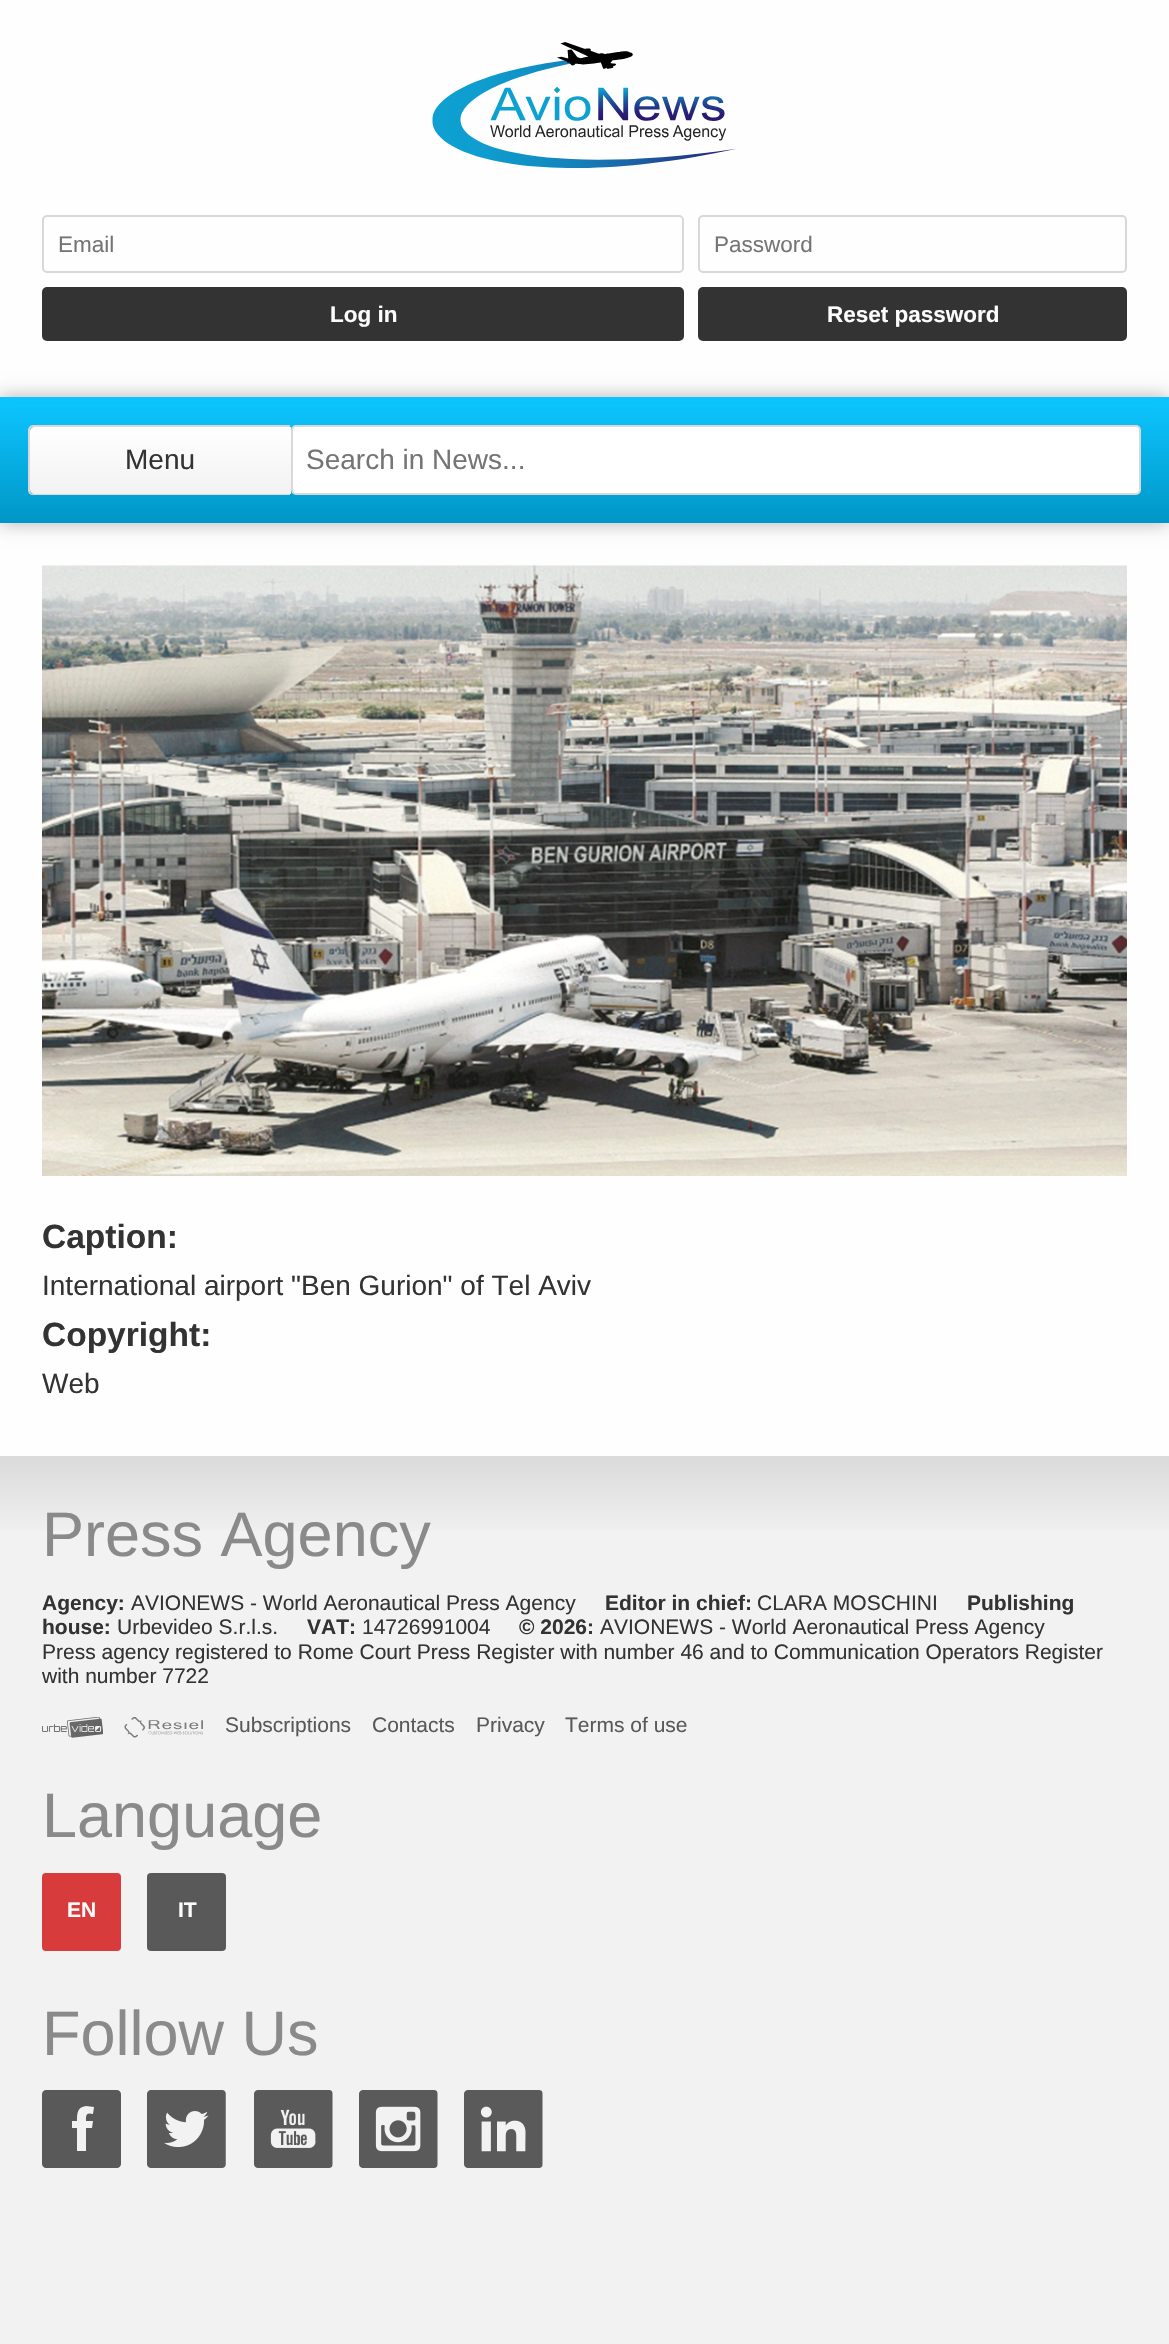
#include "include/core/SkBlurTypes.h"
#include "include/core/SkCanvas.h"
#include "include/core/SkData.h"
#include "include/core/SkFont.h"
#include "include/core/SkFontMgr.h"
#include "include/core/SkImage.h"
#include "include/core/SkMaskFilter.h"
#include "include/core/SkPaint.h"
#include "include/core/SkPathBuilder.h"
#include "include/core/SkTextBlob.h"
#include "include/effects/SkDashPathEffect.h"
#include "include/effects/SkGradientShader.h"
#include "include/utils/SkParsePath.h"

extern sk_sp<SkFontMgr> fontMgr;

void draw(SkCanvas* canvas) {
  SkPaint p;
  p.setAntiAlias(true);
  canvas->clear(SkColorSetRGB(242, 242, 242));
  p.setColor(SkColorSetARGB(26, 0, 0, 0));
  p.setMaskFilter(SkMaskFilter::MakeBlur(kNormal_SkBlurStyle, 9));
  canvas->drawRect(SkRect::MakeLTRB(0, 0, 1169, 397), p);
  p.setMaskFilter(nullptr);
  p.setColor(SkColorSetRGB(254, 254, 254));
  canvas->drawRect(SkRect::MakeLTRB(0, 0, 1169, 397), p);
  canvas->drawImageRect(SkImages::DeferredFromEncodedData(SkData::MakeFromFileName("images/1.png")), SkRect::MakeLTRB(432, 42, 736, 168), SkSamplingOptions());
  p.setStyle(SkPaint::kStroke_Style);
  p.setStrokeWidth(2);
  p.setColor(SkColorSetRGB(216, 216, 216));
  canvas->drawRoundRect(SkRect::MakeLTRB(43, 216, 683, 272), 4, 4, p);
  canvas->drawRoundRect(SkRect::MakeLTRB(699, 216, 1126, 272), 4, 4, p);
  p.setStyle(SkPaint::kFill_Style);
  p.setColor(SkColorSetRGB(51, 51, 51));
  canvas->drawRoundRect(SkRect::MakeLTRB(42, 287, 684, 341), 5, 5, p);
  canvas->drawRoundRect(SkRect::MakeLTRB(698, 287, 1127, 341), 5, 5, p);
  p.setColor(SkColorSetRGB(254, 254, 254));
  canvas->drawRect(SkRect::MakeLTRB(0, 523, 1169, 1456), p);
  canvas->save();
  canvas->clipPath(SkPathBuilder(SkPathFillType::kEvenOdd).moveTo(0, 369).lineTo(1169, 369).lineTo(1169, 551).lineTo(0, 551).close().moveTo(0, 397).lineTo(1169, 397).lineTo(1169, 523).lineTo(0, 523).close().detach(), true);
  p.setColor(SkColorSetARGB(77, 0, 0, 0));
  p.setMaskFilter(SkMaskFilter::MakeBlur(kNormal_SkBlurStyle, 9));
  canvas->drawRect(SkRect::MakeLTRB(0, 397, 1169, 523), p);
  p.setMaskFilter(nullptr);
  canvas->restore();
  {
    const SkColor colors[] = {SkColorSetARGB(242, 0, 195, 255), SkColorSetRGB(0, 150, 199)};
    const float stops[] = {0, 1};
    const SkPoint ends[] = {{585, 397}, {585, 523}};
    p.setShader(SkGradientShader::MakeLinear(ends, colors, stops, 2, SkTileMode::kClamp));
    p.setAlpha(255);
  }
  canvas->drawRect(SkRect::MakeLTRB(0, 397, 1169, 523), p);
  {
    const SkColor colors[] = {SK_ColorWHITE, SkColorSetRGB(242, 242, 242)};
    const float stops[] = {0, 1};
    const SkPoint ends[] = {{160, 427}, {160, 494}};
    p.setShader(SkGradientShader::MakeLinear(ends, colors, stops, 2, SkTileMode::kClamp));
    p.setAlpha(255);
  }
  canvas->drawPath(SkPathBuilder().moveTo(34, 427).lineTo(291, 427).lineTo(291, 494).lineTo(34, 494).cubicTo(32, 494, 30, 492, 30, 490).lineTo(30, 431).cubicTo(30, 429, 32, 427, 34, 427).close().detach(), p);
  p.setShader(nullptr);
  p.setColor(SkColorSetRGB(216, 216, 216));
  canvas->drawPath(SkPathBuilder(SkPathFillType::kEvenOdd).moveTo(33, 425).lineTo(290, 425).lineTo(290, 495).lineTo(33, 495).cubicTo(30, 495, 28, 493, 28, 490).lineTo(28, 430).cubicTo(28, 428, 30, 425, 33, 425).close().moveTo(33, 427).lineTo(290, 427).lineTo(290, 494).lineTo(33, 494).cubicTo(31, 494, 30, 492, 30, 490).lineTo(30, 430).cubicTo(30, 429, 31, 427, 33, 427).close().detach(), p);
  p.setColor(SK_ColorWHITE);
  canvas->drawRoundRect(SkRect::MakeLTRB(292, 426, 1140, 494), 4, 4, p);
  p.setStyle(SkPaint::kStroke_Style);
  p.setColor(SkColorSetRGB(216, 216, 216));
  canvas->drawRoundRect(SkRect::MakeLTRB(292, 426, 1140, 494), 4, 4, p);
  canvas->drawImageRect(SkImages::DeferredFromEncodedData(SkData::MakeFromFileName("images/2.png")), SkRect::MakeLTRB(42, 565, 1127, 1176), SkSamplingOptions());
  p.setStyle(SkPaint::kFill_Style);
  {
    const SkColor colors[] = {SkColorSetRGB(218, 218, 218), SkColorSetRGB(242, 242, 242)};
    const float stops[] = {0, 1};
    const SkPoint ends[] = {{585, 1456}, {585, 1540}};
    p.setShader(SkGradientShader::MakeLinear(ends, colors, stops, 2, SkTileMode::kClamp));
    p.setAlpha(255);
  }
  canvas->drawRect(SkRect::MakeLTRB(0, 1456, 1169, 1531), p);
  canvas->drawImageRect(SkImages::DeferredFromEncodedData(SkData::MakeFromFileName("images/3.png")), SkRect::MakeLTRB(42, 1717, 103, 1738), SkSamplingOptions());
  canvas->drawImageRect(SkImages::DeferredFromEncodedData(SkData::MakeFromFileName("images/4.png")), SkRect::MakeLTRB(124, 1717, 203, 1738), SkSamplingOptions());
  p.setShader(nullptr);
  p.setColor(SkColorSetRGB(215, 59, 59));
  canvas->drawRoundRect(SkRect::MakeLTRB(42, 1873, 121, 1951), 4, 4, p);
  p.setColor(SkColorSetRGB(89, 89, 89));
  canvas->drawRoundRect(SkRect::MakeLTRB(147, 1873, 226, 1951), 4, 4, p);
  canvas->drawPath(SkPathBuilder(SkPathFillType::kEvenOdd).moveTo(46, 2090).cubicTo(44, 2090, 42, 2092, 42, 2094).lineTo(42, 2164).cubicTo(42, 2166, 44, 2168, 46, 2168).lineTo(117, 2168).cubicTo(119, 2168, 121, 2166, 121, 2164).lineTo(121, 2094).cubicTo(121, 2092, 119, 2090, 117, 2090).close().moveTo(93, 2121).lineTo(86, 2121).cubicTo(86, 2115, 86, 2112, 93, 2114).lineTo(94, 2107).lineTo(86, 2106).cubicTo(77, 2107, 77, 2114, 77, 2121).lineTo(72, 2121).lineTo(72, 2128).lineTo(77, 2128).lineTo(77, 2151).lineTo(86, 2151).lineTo(86, 2128).lineTo(92, 2128).close().detach(), p);
  canvas->drawImageRect(SkImages::DeferredFromEncodedData(SkData::MakeFromFileName("images/5.png")), SkRect::MakeLTRB(147, 2090, 226, 2168), SkSamplingOptions());
  canvas->drawImageRect(SkImages::DeferredFromEncodedData(SkData::MakeFromFileName("images/6.png")), SkRect::MakeLTRB(254, 2090, 333, 2168), SkSamplingOptions());
  canvas->drawImageRect(SkImages::DeferredFromEncodedData(SkData::MakeFromFileName("images/7.png")), SkRect::MakeLTRB(359, 2090, 438, 2168), SkSamplingOptions());
  canvas->drawImageRect(SkImages::DeferredFromEncodedData(SkData::MakeFromFileName("images/8.png")), SkRect::MakeLTRB(464, 2090, 543, 2168), SkSamplingOptions());
  SkFont font1(fontMgr->matchFamilyStyle("Liberation Sans", SkFontStyle::Normal()), 22.5f);
  font1.setSubpixel(true);
  p.setColor(SkColorSetRGB(117, 117, 117));
  canvas->drawString("Email", 58, 252, font1, p);
  canvas->drawString("Password", 714, 252, font1, p);
  SkFont font2(fontMgr->matchFamilyStyle("Liberation Sans", SkFontStyle::Bold()), 22.5f);
  font2.setSubpixel(true);
  p.setColor(SkColorSetRGB(252, 252, 252));
  canvas->drawString("Log in", 330, 322, font2, p);
  canvas->drawString("Reset password", 827, 322, font2, p);
  SkFont font3(fontMgr->matchFamilyStyle("Liberation Sans", SkFontStyle::Normal()), 28);
  font3.setSubpixel(true);
  p.setColor(SkColorSetRGB(51, 51, 51));
  canvas->drawString("Menu", 125, 469, font3, p);
  p.setColor(SkColorSetRGB(117, 117, 117));
  canvas->drawString("Search in News...", 306, 469, font3, p);
  SkFont font4(fontMgr->matchFamilyStyle("Liberation Sans", SkFontStyle::Bold()), 33.5f);
  font4.setSubpixel(true);
  p.setColor(SkColorSetRGB(51, 51, 51));
  canvas->drawString("Caption:", 42, 1248, font4, p);
  canvas->drawString("International airport \"Ben Gurion\" of Tel Aviv", 42, 1295, font3, p);
  canvas->drawString("Copyright:", 42, 1346, font4, p);
  canvas->drawString("Web", 42, 1393, font3, p);
  SkFont font5(fontMgr->matchFamilyStyle("Liberation Sans", SkFontStyle::Normal()), 63);
  font5.setSubpixel(true);
  p.setColor(SkColorSetRGB(138, 138, 138));
  canvas->drawString("Press Agency", 42, 1556, font5, p);
  SkFont font6(fontMgr->matchFamilyStyle("Liberation Sans", SkFontStyle::Bold()), 21);
  font6.setSubpixel(true);
  p.setColor(SkColorSetRGB(51, 51, 51));
  canvas->drawString("Agency:", 42, 1610, font6, p);
  SkFont font7(fontMgr->matchFamilyStyle("Liberation Sans", SkFontStyle::Normal()), 21);
  font7.setSubpixel(true);
  canvas->drawString("AVIONEWS - World Aeronautical Press Agency", 131, 1610, font7, p);
  canvas->drawString("Editor in chief:", 605, 1610, font6, p);
  canvas->drawString("CLARA MOSCHINI", 757, 1610, font7, p);
  canvas->drawString("Publishing", 967, 1610, font6, p);
  canvas->drawString("house:", 42, 1634, font6, p);
  canvas->drawString("Urbevideo S.r.l.s.", 117, 1634, font7, p);
  canvas->drawString("VAT:", 307, 1634, font6, p);
  canvas->drawString("14726991004", 362, 1634, font7, p);
  canvas->drawString("© 2026:", 519, 1634, font6, p);
  canvas->drawString("AVIONEWS - World Aeronautical Press Agency", 600, 1634, font7, p);
  canvas->drawString("Press agency registered to Rome Court Press Register with number 46 and to Communication Operators Register", 42, 1659, font7, p);
  canvas->drawString("with number 7722", 42, 1683, font7, p);
  p.setColor(SkColorSetRGB(89, 89, 89));
  canvas->drawString("Subscriptions", 225, 1732, font7, p);
  canvas->drawString("Contacts", 372, 1732, font7, p);
  canvas->drawString("Privacy", 476, 1732, font7, p);
  canvas->drawString("Terms of use", 565, 1732, font7, p);
  p.setColor(SkColorSetRGB(138, 138, 138));
  canvas->drawString("Language", 42, 1837, font5, p);
  p.setColor(SkColorSetRGB(252, 252, 252));
  canvas->drawString("EN", 67, 1917, font6, p);
  canvas->drawString("IT", 178, 1917, font6, p);
  p.setColor(SkColorSetRGB(138, 138, 138));
  canvas->drawString("Follow Us", 42, 2055, font5, p);
}
